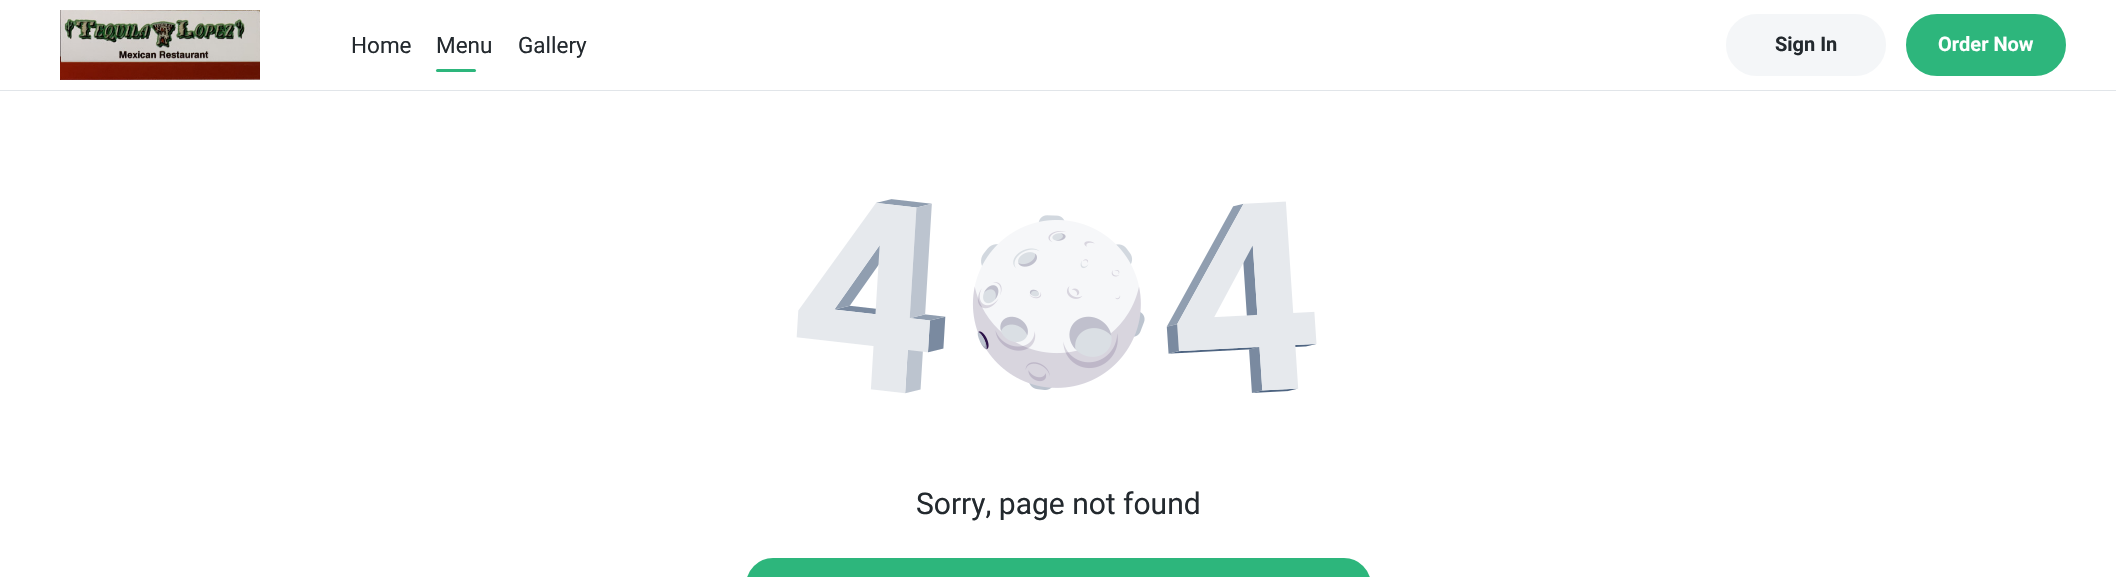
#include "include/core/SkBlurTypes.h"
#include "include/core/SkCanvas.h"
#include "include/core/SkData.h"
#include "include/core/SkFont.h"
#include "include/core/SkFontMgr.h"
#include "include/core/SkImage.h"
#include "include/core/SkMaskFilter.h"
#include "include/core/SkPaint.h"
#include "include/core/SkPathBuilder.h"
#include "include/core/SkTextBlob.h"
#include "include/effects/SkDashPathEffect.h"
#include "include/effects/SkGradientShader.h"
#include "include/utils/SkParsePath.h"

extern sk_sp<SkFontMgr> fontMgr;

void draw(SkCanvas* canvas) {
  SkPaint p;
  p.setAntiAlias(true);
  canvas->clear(SK_ColorWHITE);
  p.setColor(SkColorSetRGB(225, 229, 233));
  canvas->drawRect(SkRect::MakeLTRB(0, 90, 2116, 91), p);
  canvas->drawImageRect(SkImages::DeferredFromEncodedData(SkData::MakeFromFileName("images/1.png")), SkRect::MakeLTRB(60, 10, 260, 80), SkSamplingOptions());
  p.setColor(SkColorSetRGB(45, 182, 124));
  canvas->drawRoundRect(SkRect::MakeLTRB(436, 69, 476, 72), 1.5f, 1.5f, p);
  p.setColor(SkColorSetRGB(244, 246, 248));
  canvas->drawRoundRect(SkRect::MakeLTRB(1727.5f, 15.5f, 1884.5f, 74.5f), 29.5f, 29.5f, p);
  p.setStyle(SkPaint::kStroke_Style);
  p.setStrokeWidth(3);
  canvas->drawRoundRect(SkRect::MakeLTRB(1727.5f, 15.5f, 1884.5f, 74.5f), 29.5f, 29.5f, p);
  p.setStyle(SkPaint::kFill_Style);
  p.setColor(SkColorSetRGB(45, 182, 124));
  canvas->drawRoundRect(SkRect::MakeLTRB(1907.5f, 15.5f, 2064.5f, 74.5f), 29.5f, 29.5f, p);
  p.setStyle(SkPaint::kStroke_Style);
  canvas->drawRoundRect(SkRect::MakeLTRB(1907.5f, 15.5f, 2064.5f, 74.5f), 29.5f, 29.5f, p);
  canvas->drawImageRect(SkImages::DeferredFromEncodedData(SkData::MakeFromFileName("images/2.png")), SkRect::MakeLTRB(796, 199, 1317, 394), SkSamplingOptions());
  p.setStyle(SkPaint::kFill_Style);
  canvas->drawRoundRect(SkRect::MakeLTRB(747.5f, 559.5f, 1369.5f, 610.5f), 30, 30, p);
  p.setStyle(SkPaint::kStroke_Style);
  canvas->drawRoundRect(SkRect::MakeLTRB(747.5f, 559.5f, 1369.5f, 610.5f), 30, 30, p);
  SkFont font1(fontMgr->matchFamilyStyle("Roboto", SkFontStyle::Normal()), 22.5f);
  font1.setSubpixel(true);
  p.setStyle(SkPaint::kFill_Style);
  p.setColor(SkColorSetRGB(35, 41, 46));
  canvas->drawString("Home", 351, 53, font1, p);
  canvas->drawString("Menu", 436, 53, font1, p);
  canvas->drawString("Gallery", 518, 53, font1, p);
  SkFont font2(fontMgr->matchFamilyStyle("Roboto", SkFontStyle::Bold()), 20);
  font2.setSubpixel(true);
  canvas->drawString("Sign In", 1775, 51, font2, p);
  p.setColor(SK_ColorWHITE);
  canvas->drawString("Order Now", 1938, 51, font2, p);
  SkFont font3(fontMgr->matchFamilyStyle("Roboto", SkFontStyle::Normal()), 30);
  font3.setSubpixel(true);
  p.setColor(SkColorSetRGB(35, 41, 46));
  canvas->drawString("Sorry, page not found", 916, 514, font3, p);
}
